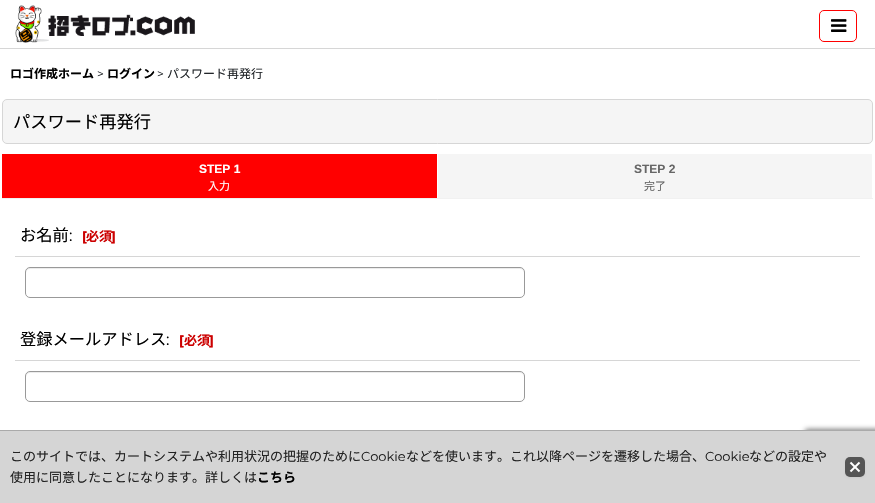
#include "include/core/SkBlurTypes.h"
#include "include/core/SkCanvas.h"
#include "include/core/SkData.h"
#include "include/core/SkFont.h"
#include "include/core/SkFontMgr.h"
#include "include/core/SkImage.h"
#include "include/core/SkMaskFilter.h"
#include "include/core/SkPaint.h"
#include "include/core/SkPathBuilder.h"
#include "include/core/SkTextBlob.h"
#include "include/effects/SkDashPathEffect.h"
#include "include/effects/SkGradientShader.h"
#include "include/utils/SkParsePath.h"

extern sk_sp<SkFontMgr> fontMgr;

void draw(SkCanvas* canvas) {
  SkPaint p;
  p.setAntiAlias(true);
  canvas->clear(SK_ColorWHITE);
  p.setColor(SkColorSetRGB(214, 214, 214));
  canvas->drawRect(SkRect::MakeLTRB(0, 48, 875, 49), p);
  canvas->drawImageRect(SkImages::DeferredFromEncodedData(SkData::MakeFromFileName("images/1.png")), SkRect::MakeLTRB(15, 5, 195, 43), SkSamplingOptions());
  p.setStyle(SkPaint::kStroke_Style);
  p.setStrokeWidth(1);
  p.setColor(SkColorSetRGB(255, 0, 0));
  canvas->drawRoundRect(SkRect::MakeLTRB(819.5f, 10.5f, 856.5f, 41.5f), 4.5f, 4.5f, p);
  canvas->drawImageRect(SkImages::DeferredFromEncodedData(SkData::MakeFromFileName("images/2.png")), SkRect::MakeLTRB(831, 19, 847, 32), SkSamplingOptions());
  p.setStyle(SkPaint::kFill_Style);
  p.setColor(SkColorSetRGB(245, 245, 245));
  canvas->drawRoundRect(SkRect::MakeLTRB(2.5f, 99.5f, 872.5f, 143.5f), 4.5f, 4.5f, p);
  p.setStyle(SkPaint::kStroke_Style);
  p.setColor(SkColorSetRGB(214, 214, 214));
  canvas->drawRoundRect(SkRect::MakeLTRB(2.5f, 99.5f, 872.5f, 143.5f), 4.5f, 4.5f, p);
  p.setStyle(SkPaint::kFill_Style);
  p.setColor(SkColorSetRGB(255, 0, 0));
  canvas->drawRect(SkRect::MakeLTRB(2, 154, 437, 198), p);
  p.setColor(SkColorSetRGB(241, 241, 241));
  canvas->drawRect(SkRect::MakeLTRB(2, 198, 873, 199), p);
  p.setColor(SkColorSetRGB(245, 245, 245));
  canvas->drawRect(SkRect::MakeLTRB(438, 154, 872, 198), p);
  p.setColor(SkColorSetRGB(214, 214, 214));
  canvas->drawRect(SkRect::MakeLTRB(15, 256, 860, 257), p);
  p.setColor(SkColorSetRGB(236, 236, 236));
  canvas->drawPath(SkPathBuilder().moveTo(30, 269).lineTo(520, 269).cubicTo(522, 269, 524, 271, 524, 273).cubicTo(524, 270, 523, 268, 520, 268).lineTo(30, 268).cubicTo(27, 268, 26, 270, 26, 273).cubicTo(26, 271, 28, 269, 30, 269).close().detach(), p);
  p.setStyle(SkPaint::kStroke_Style);
  p.setColor(SkColorSetRGB(153, 153, 153));
  canvas->drawRoundRect(SkRect::MakeLTRB(25.5f, 267.5f, 524.5f, 297.5f), 4.5f, 4.5f, p);
  p.setStyle(SkPaint::kFill_Style);
  p.setColor(SkColorSetRGB(214, 214, 214));
  canvas->drawRect(SkRect::MakeLTRB(15, 360, 860, 361), p);
  p.setColor(SkColorSetRGB(236, 236, 236));
  canvas->drawPath(SkPathBuilder().moveTo(30, 373).lineTo(520, 373).cubicTo(522, 373, 524, 375, 524, 377).cubicTo(524, 374, 523, 372, 520, 372).lineTo(30, 372).cubicTo(27, 372, 26, 374, 26, 377).cubicTo(26, 375, 28, 373, 30, 373).close().detach(), p);
  p.setStyle(SkPaint::kStroke_Style);
  p.setColor(SkColorSetRGB(153, 153, 153));
  canvas->drawRoundRect(SkRect::MakeLTRB(25.5f, 371.5f, 524.5f, 401.5f), 4.5f, 4.5f, p);
  p.setStyle(SkPaint::kFill_Style);
  p.setColor(SkColorSetRGB(128, 128, 128));
  p.setMaskFilter(SkMaskFilter::MakeBlur(kNormal_SkBlurStyle, 2.5f));
  canvas->drawRoundRect(SkRect::MakeLTRB(805, 429, 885, 489), 2, 2, p);
  p.setMaskFilter(nullptr);
  p.setColor(SkColorSetRGB(213, 213, 213));
  canvas->drawRect(SkRect::MakeLTRB(0, 431, 875, 503), p);
  p.setColor(SkColorSetRGB(170, 170, 170));
  canvas->drawRect(SkRect::MakeLTRB(0, 430, 875, 431), p);
  p.setColor(SkColorSetARGB(13, 0, 0, 0));
  p.setMaskFilter(SkMaskFilter::MakeBlur(kNormal_SkBlurStyle, 1));
  canvas->drawRoundRect(SkRect::MakeLTRB(845, 458, 865, 478), 5, 5, p);
  p.setMaskFilter(nullptr);
  canvas->drawImageRect(SkImages::DeferredFromEncodedData(SkData::MakeFromFileName("images/3.png")), SkRect::MakeLTRB(845, 457, 865, 477), SkSamplingOptions());
  SkFont font1(fontMgr->matchFamilyStyle("Noto Sans JP", SkFontStyle::Bold()), 12);
  font1.setSubpixel(true);
  p.setColor(SK_ColorBLACK);
  canvas->drawString("ロゴ作成ホーム", 10, 78, font1, p);
  SkFont font2(fontMgr->matchFamilyStyle("Montserrat", SkFontStyle::Normal()), 12);
  font2.setSubpixel(true);
  p.setColor(SkColorSetRGB(33, 37, 41));
  canvas->drawString(">", 97, 78, font2, p);
  p.setColor(SK_ColorBLACK);
  canvas->drawString("ログイン", 107, 78, font1, p);
  p.setColor(SkColorSetRGB(33, 37, 41));
  canvas->drawString(">", 157, 78, font2, p);
  SkFont font3(fontMgr->matchFamilyStyle("Noto Sans JP", SkFontStyle::Normal()), 12);
  font3.setSubpixel(true);
  canvas->drawString("パスワード再発行", 167, 78, font3, p);
  SkFont font4(fontMgr->matchFamilyStyle("Noto Sans JP", SkFontStyle::Normal()), 17.25f);
  font4.setSubpixel(true);
  p.setColor(SK_ColorBLACK);
  canvas->drawString("パスワード再発行", 13, 128, font4, p);
  SkFont font5(fontMgr->matchFamilyStyle("Liberation Sans", SkFontStyle::Bold()), 12);
  font5.setSubpixel(true);
  p.setColor(SK_ColorWHITE);
  canvas->drawString("STEP 1", 199, 173, font5, p);
  SkFont font6(fontMgr->matchFamilyStyle("Noto Sans JP", SkFontStyle::Normal()), 11);
  font6.setSubpixel(true);
  canvas->drawString("入力", 208, 190, font6, p);
  p.setColor(SkColorSetRGB(102, 102, 102));
  canvas->drawString("STEP 2", 634, 173, font5, p);
  canvas->drawString("完了", 644, 190, font6, p);
  SkFont font7(fontMgr->matchFamilyStyle("Noto Sans JP", SkFontStyle::Normal()), 16.25f);
  font7.setSubpixel(true);
  p.setColor(SK_ColorBLACK);
  canvas->drawString("お名前", 20, 241, font7, p);
  SkFont font8(fontMgr->matchFamilyStyle("Montserrat", SkFontStyle::Normal()), 16.25f);
  font8.setSubpixel(true);
  canvas->drawString(":", 69, 241, font8, p);
  SkFont font9(fontMgr->matchFamilyStyle("Montserrat", SkFontStyle::Bold()), 13);
  font9.setSubpixel(true);
  p.setColor(SkColorSetRGB(204, 0, 0));
  canvas->drawString("[", 82, 241, font9, p);
  SkFont font10(fontMgr->matchFamilyStyle("Noto Sans JP", SkFontStyle::Bold()), 13);
  font10.setSubpixel(true);
  canvas->drawString("必須", 86, 241, font10, p);
  canvas->drawString("]", 111, 241, font9, p);
  p.setColor(SK_ColorBLACK);
  canvas->drawString("登録メールアドレス", 20, 345, font7, p);
  canvas->drawString(":", 166, 345, font8, p);
  p.setColor(SkColorSetRGB(204, 0, 0));
  canvas->drawString("[", 179, 345, font9, p);
  canvas->drawString("必須", 184, 345, font10, p);
  canvas->drawString("]", 209, 345, font9, p);
  SkFont font11(fontMgr->matchFamilyStyle("Noto Sans JP", SkFontStyle::Normal()), 13);
  font11.setSubpixel(true);
  p.setColor(SkColorSetRGB(34, 34, 34));
  canvas->drawString("このサイトでは、カートシステムや利用状況の把握のために", 10, 461, font11, p);
  SkFont font12(fontMgr->matchFamilyStyle("Montserrat", SkFontStyle::Normal()), 13);
  font12.setSubpixel(true);
  canvas->drawString("Cookie", 361, 461, font12, p);
  canvas->drawString("などを使います。これ以降ページを遷移した場合、", 406, 461, font11, p);
  canvas->drawString("Cookie", 705, 461, font12, p);
  canvas->drawString("などの設定や", 749, 461, font11, p);
  canvas->drawString("使用に同意したことになります。詳しくは", 10, 482, font11, p);
  p.setColor(SK_ColorBLACK);
  canvas->drawString("こちら", 257, 482, font10, p);
}
